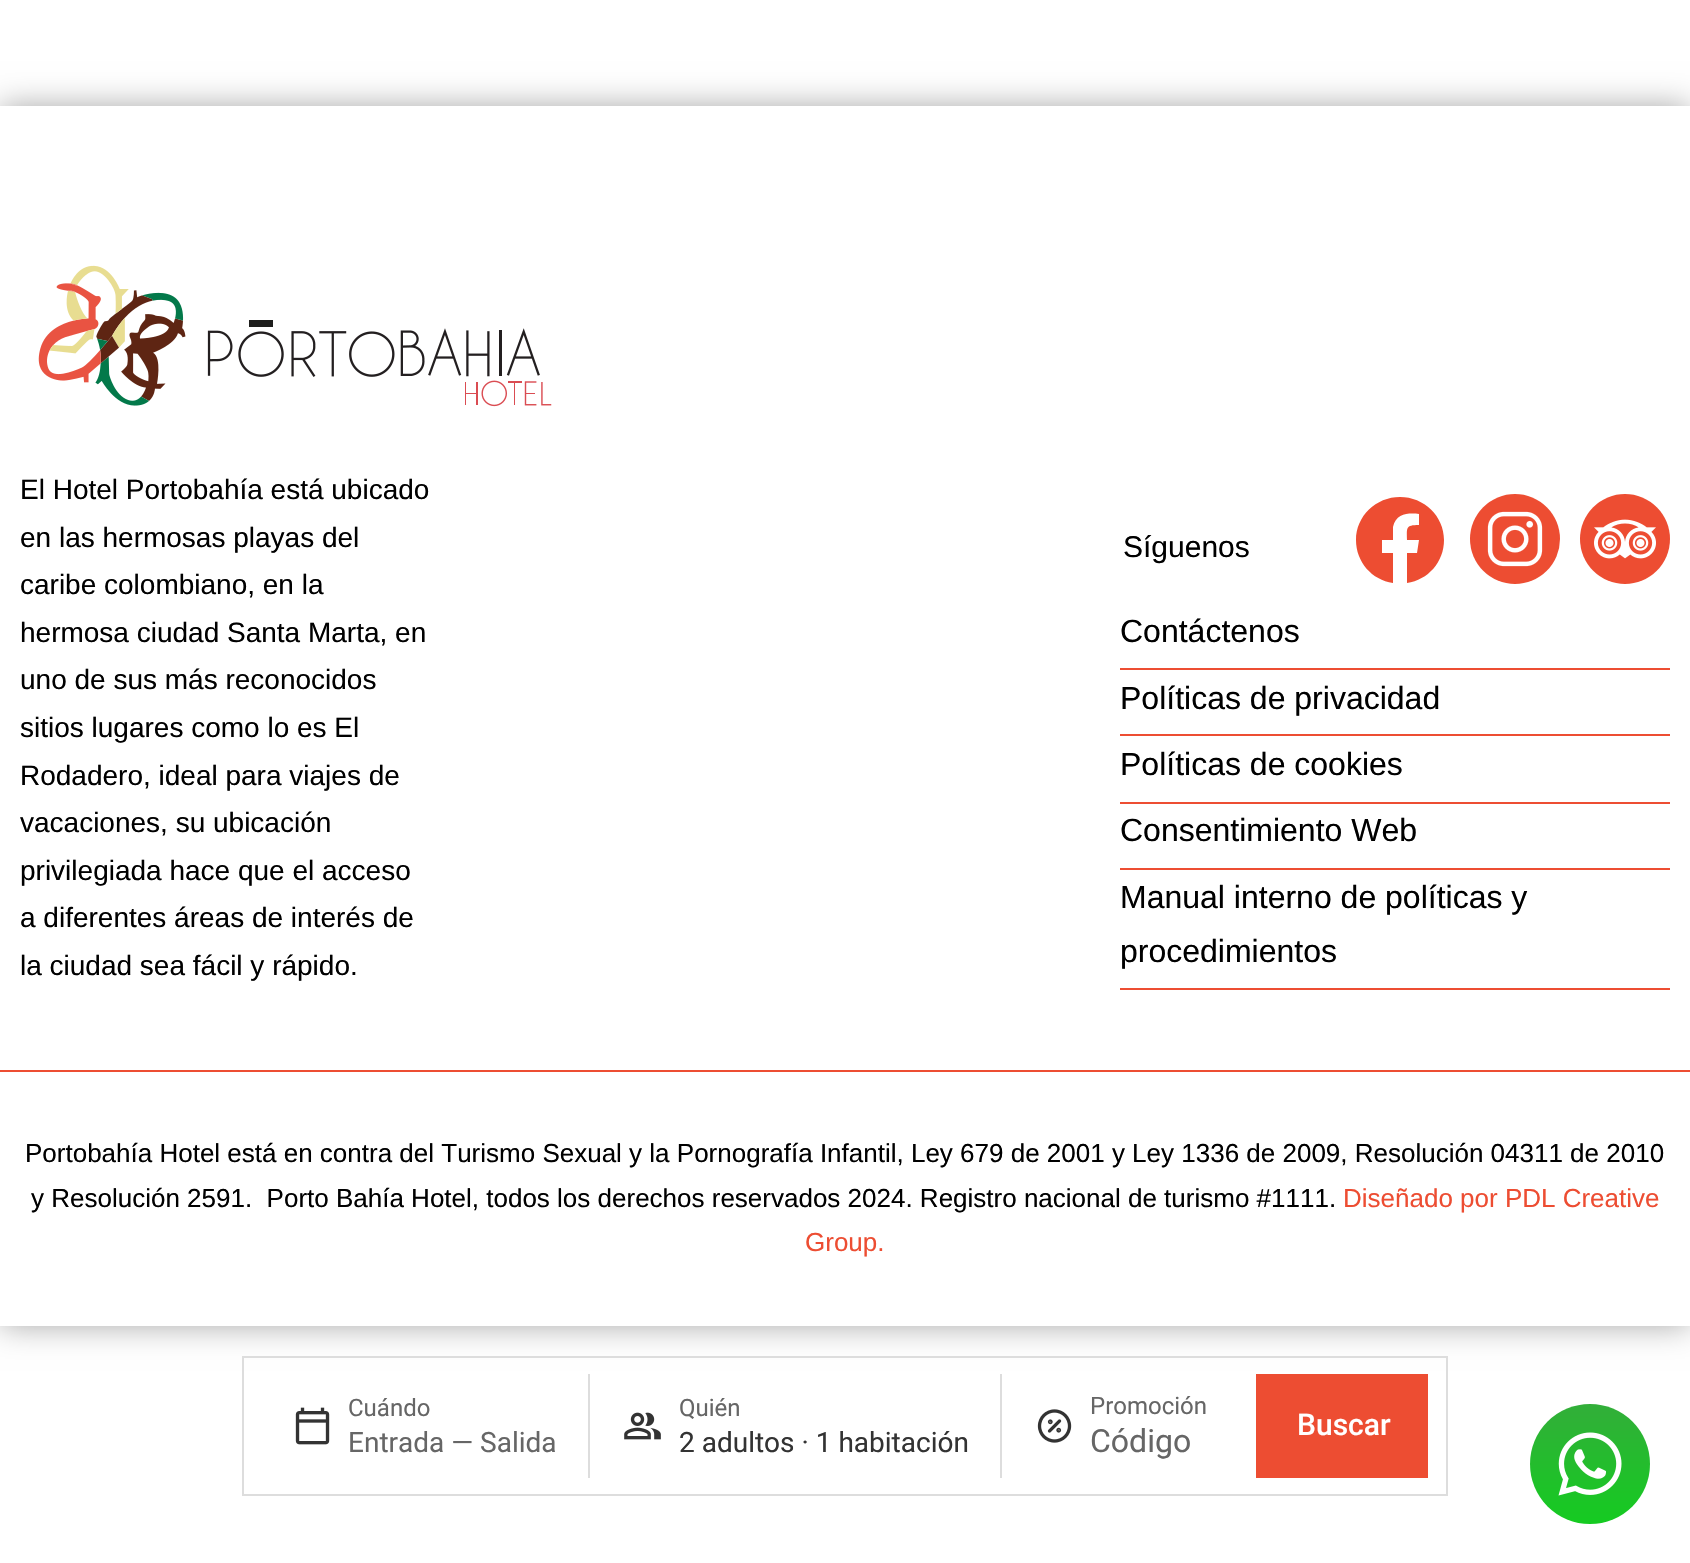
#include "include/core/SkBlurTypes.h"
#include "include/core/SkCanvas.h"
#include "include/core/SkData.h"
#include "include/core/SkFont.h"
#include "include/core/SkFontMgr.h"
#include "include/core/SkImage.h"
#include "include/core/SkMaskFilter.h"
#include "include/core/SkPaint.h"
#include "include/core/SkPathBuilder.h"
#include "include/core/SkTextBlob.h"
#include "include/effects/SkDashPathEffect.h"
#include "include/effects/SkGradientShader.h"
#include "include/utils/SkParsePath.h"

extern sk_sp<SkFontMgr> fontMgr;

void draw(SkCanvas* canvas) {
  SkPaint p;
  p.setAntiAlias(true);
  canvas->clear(SK_ColorWHITE);
  canvas->save();
  canvas->clipPath(SkPathBuilder(SkPathFillType::kEvenOdd).moveTo(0, 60).lineTo(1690, 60).lineTo(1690, 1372).lineTo(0, 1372).close().moveTo(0, 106).lineTo(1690, 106).lineTo(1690, 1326).lineTo(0, 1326).close().detach(), true);
  p.setColor(SkColorSetARGB(87, 0, 0, 0));
  p.setMaskFilter(SkMaskFilter::MakeBlur(kNormal_SkBlurStyle, 15));
  canvas->drawRect(SkRect::MakeLTRB(0, 106, 1690, 1326), p);
  p.setMaskFilter(nullptr);
  canvas->restore();
  canvas->drawImageRect(SkImages::DeferredFromEncodedData(SkData::MakeFromFileName("images/1.png")), SkRect::MakeLTRB(38, 265, 552, 407), SkSamplingOptions());
  p.setColor(SkColorSetRGB(237, 77, 50));
  canvas->drawPath(SkPathBuilder(SkPathFillType::kEvenOdd).moveTo(1444, 540).cubicTo(1444, 516, 1424, 497, 1400, 497).cubicTo(1376, 497, 1356, 516, 1356, 540).cubicTo(1356, 562, 1372, 580, 1393, 583).lineTo(1393, 553).lineTo(1382, 553).lineTo(1382, 540).lineTo(1393, 540).lineTo(1393, 527).cubicTo(1396, 513, 1409, 513, 1419, 514).lineTo(1419, 525).cubicTo(1405, 525, 1407, 528, 1407, 540).lineTo(1419, 540).lineTo(1417, 553).lineTo(1407, 553).lineTo(1407, 583).cubicTo(1428, 580, 1444, 562, 1444, 540).close().detach(), p);
  canvas->drawCircle(1515, 539, 45, p);
  canvas->drawImageRect(SkImages::DeferredFromEncodedData(SkData::MakeFromFileName("images/2.png")), SkRect::MakeLTRB(1487, 511, 1543, 567), SkSamplingOptions());
  canvas->drawCircle(1625, 539, 45, p);
  canvas->drawImageRect(SkImages::DeferredFromEncodedData(SkData::MakeFromFileName("images/3.png")), SkRect::MakeLTRB(1594, 519, 1656, 559), SkSamplingOptions());
  {
    const SkColor colors[] = {SkColorSetRGB(50, 174, 57), SkColorSetRGB(21, 203, 33)};
    const float stops[] = {0, 1};
    const SkPoint ends[] = {{1590, 1404}, {1590, 1524}};
    p.setShader(SkGradientShader::MakeLinear(ends, colors, stops, 2, SkTileMode::kClamp));
    p.setAlpha(255);
  }
  canvas->drawCircle(1590, 1464, 60, p);
  canvas->drawImageRect(SkImages::DeferredFromEncodedData(SkData::MakeFromFileName("images/4.png")), SkRect::MakeLTRB(1558, 1432, 1622, 1496), SkSamplingOptions());
  p.setShader(nullptr);
  p.setColor(SkColorSetRGB(237, 77, 50));
  canvas->drawRect(SkRect::MakeLTRB(1120, 668, 1670, 670), p);
  canvas->drawRect(SkRect::MakeLTRB(1120, 734, 1670, 736), p);
  canvas->drawRect(SkRect::MakeLTRB(1120, 802, 1670, 804), p);
  canvas->drawRect(SkRect::MakeLTRB(1120, 868, 1670, 870), p);
  canvas->drawRect(SkRect::MakeLTRB(1120, 988, 1670, 990), p);
  canvas->drawRect(SkRect::MakeLTRB(0, 1070, 1690, 1072), p);
  p.setStyle(SkPaint::kStroke_Style);
  p.setStrokeWidth(2);
  p.setColor(SkColorSetRGB(221, 221, 221));
  canvas->drawRect(SkRect::MakeLTRB(243, 1357, 1447, 1495), p);
  canvas->drawImageRect(SkImages::DeferredFromEncodedData(SkData::MakeFromFileName("images/5.png")), SkRect::MakeLTRB(295, 1407, 330, 1445), SkSamplingOptions());
  p.setStyle(SkPaint::kFill_Style);
  canvas->drawRect(SkRect::MakeLTRB(588, 1374, 590, 1478), p);
  canvas->drawImageRect(SkImages::DeferredFromEncodedData(SkData::MakeFromFileName("images/6.png")), SkRect::MakeLTRB(624, 1412, 661, 1440), SkSamplingOptions());
  canvas->drawRect(SkRect::MakeLTRB(1000, 1374, 1002, 1478), p);
  canvas->drawImageRect(SkImages::DeferredFromEncodedData(SkData::MakeFromFileName("images/7.png")), SkRect::MakeLTRB(1037, 1409, 1072, 1443), SkSamplingOptions());
  p.setColor(SkColorSetRGB(237, 77, 50));
  canvas->drawRect(SkRect::MakeLTRB(1256, 1374, 1428, 1478), p);
  SkFont font1(fontMgr->matchFamilyStyle("Liberation Sans", SkFontStyle::Normal()), 28);
  font1.setSubpixel(true);
  p.setColor(SK_ColorBLACK);
  canvas->drawString("El Hotel Portobahía está ubicado", 20, 499, font1, p);
  canvas->drawString("en las hermosas playas del", 20, 547, font1, p);
  canvas->drawString("caribe colombiano, en la", 20, 594, font1, p);
  canvas->drawString("hermosa ciudad Santa Marta, en", 20, 642, font1, p);
  canvas->drawString("uno de sus más reconocidos", 20, 689, font1, p);
  canvas->drawString("sitios lugares como lo es El", 20, 737, font1, p);
  canvas->drawString("Rodadero, ideal para viajes de", 20, 785, font1, p);
  canvas->drawString("vacaciones, su ubicación", 20, 832, font1, p);
  canvas->drawString("privilegiada hace que el acceso", 20, 880, font1, p);
  canvas->drawString("a diferentes áreas de interés de", 20, 927, font1, p);
  canvas->drawString("la ciudad sea fácil y rápido.", 20, 975, font1, p);
  SkFont font2(fontMgr->matchFamilyStyle("Liberation Sans", SkFontStyle::Normal()), 30);
  font2.setSubpixel(true);
  canvas->drawString("Síguenos", 1123, 557, font2, p);
  SkFont font3(fontMgr->matchFamilyStyle("Liberation Sans", SkFontStyle::Normal()), 32);
  font3.setSubpixel(true);
  canvas->drawString("Contáctenos", 1120, 642, font3, p);
  canvas->drawString("Políticas de privacidad", 1120, 709, font3, p);
  canvas->drawString("Políticas de cookies", 1120, 775, font3, p);
  canvas->drawString("Consentimiento Web", 1120, 841, font3, p);
  canvas->drawString("Manual interno de políticas y", 1120, 908, font3, p);
  canvas->drawString("procedimientos", 1120, 962, font3, p);
  SkFont font4(fontMgr->matchFamilyStyle("Liberation Sans", SkFontStyle::Normal()), 26);
  font4.setSubpixel(true);
  canvas->drawString("Portobahía Hotel está en contra del Turismo Sexual y la Pornografía Infantil, Ley 679 de 2001 y Ley 1336 de 2009, Resolución 04311 de 2010", 25, 1162, font4, p);
  canvas->drawString("y Resolución 2591.  Porto Bahía Hotel, todos los derechos reservados 2024. Registro nacional de turismo #1111.", 31, 1207, font4, p);
  p.setColor(SkColorSetRGB(237, 77, 50));
  canvas->drawString("Diseñado por PDL Creative", 1343, 1207, font4, p);
  canvas->drawString("Group.", 805, 1251, font4, p);
  SkFont font5(fontMgr->matchFamilyStyle("Roboto", SkFontStyle::Normal()), 24);
  font5.setSubpixel(true);
  p.setColor(SkColorSetRGB(102, 102, 102));
  canvas->drawString("Cuándo", 348, 1416, font5, p);
  SkFont font6(fontMgr->matchFamilyStyle("Roboto", SkFontStyle::Normal()), 28);
  font6.setSubpixel(true);
  canvas->drawString("Entrada — Salida", 348, 1452, font6, p);
  canvas->drawString("Quién", 679, 1416, font5, p);
  p.setColor(SkColorSetRGB(51, 51, 51));
  canvas->drawString("2 adultos · 1 habitación", 679, 1452, font6, p);
  p.setColor(SkColorSetRGB(102, 102, 102));
  canvas->drawString("Promoción", 1090, 1414, font5, p);
  SkFont font7(fontMgr->matchFamilyStyle("Roboto", SkFontStyle::Normal()), 32);
  font7.setSubpixel(true);
  canvas->drawString("Código", 1090, 1452, font7, p);
  SkFont font8(fontMgr->matchFamilyStyle("Roboto", SkFontStyle(500, SkFontStyle::kNormal_Width, SkFontStyle::kUpright_Slant)), 30);
  font8.setSubpixel(true);
  p.setColor(SK_ColorWHITE);
  canvas->drawString("Buscar", 1297, 1435, font8, p);
}
